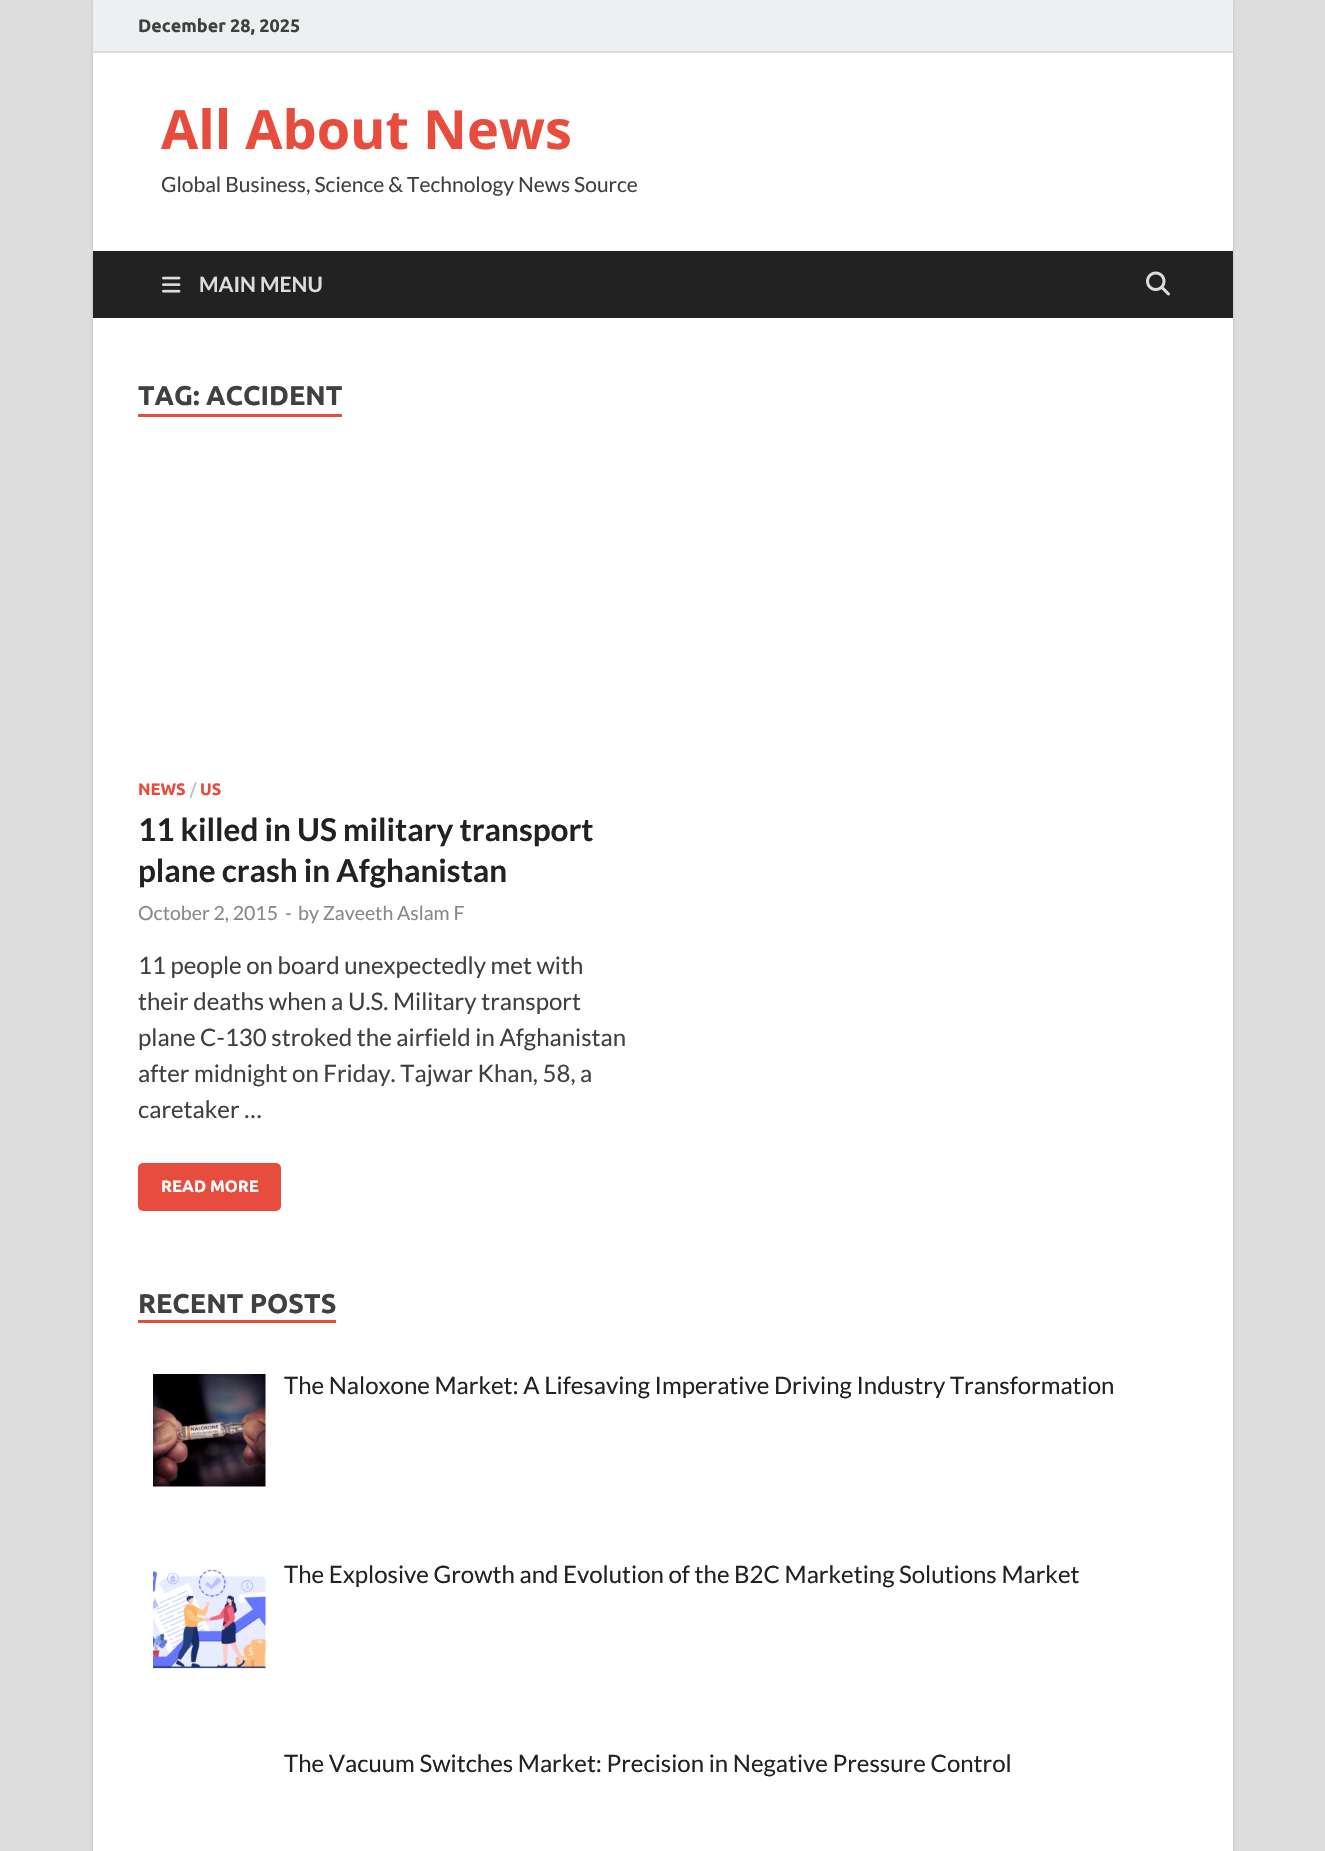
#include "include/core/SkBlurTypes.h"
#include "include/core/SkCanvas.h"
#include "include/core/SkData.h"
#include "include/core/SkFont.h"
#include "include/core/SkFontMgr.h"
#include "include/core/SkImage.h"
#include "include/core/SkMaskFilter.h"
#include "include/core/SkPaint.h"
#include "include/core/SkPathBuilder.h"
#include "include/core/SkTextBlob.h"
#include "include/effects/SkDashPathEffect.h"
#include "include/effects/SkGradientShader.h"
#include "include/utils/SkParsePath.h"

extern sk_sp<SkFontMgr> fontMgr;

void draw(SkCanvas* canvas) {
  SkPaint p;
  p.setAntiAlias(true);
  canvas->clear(SkColorSetRGB(221, 221, 221));
  p.setColor(SkColorSetRGB(187, 187, 187));
  p.setMaskFilter(SkMaskFilter::MakeBlur(kNormal_SkBlurStyle, 1.5f));
  canvas->drawRect(SkRect::MakeLTRB(93, 0, 1233, 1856), p);
  p.setMaskFilter(nullptr);
  p.setColor(SK_ColorWHITE);
  canvas->drawRect(SkRect::MakeLTRB(93, 53, 1233, 1851), p);
  p.setColor(SkColorSetRGB(236, 240, 241));
  canvas->drawRect(SkRect::MakeLTRB(93, 0, 1233, 51), p);
  p.setColor(SkColorSetRGB(221, 221, 221));
  canvas->drawRect(SkRect::MakeLTRB(93, 51, 1233, 53), p);
  p.setColor(SkColorSetRGB(34, 34, 34));
  canvas->drawRect(SkRect::MakeLTRB(93, 251, 1233, 318), p);
  canvas->drawImageRect(SkImages::DeferredFromEncodedData(SkData::MakeFromFileName("images/1.png")), SkRect::MakeLTRB(162, 276, 181, 293), SkSamplingOptions());
  canvas->drawImageRect(SkImages::DeferredFromEncodedData(SkData::MakeFromFileName("images/2.png")), SkRect::MakeLTRB(1146, 271, 1170, 296), SkSamplingOptions());
  p.setColor(SkColorSetRGB(231, 76, 60));
  canvas->drawRect(SkRect::MakeLTRB(138, 414, 342, 417), p);
  canvas->drawRoundRect(SkRect::MakeLTRB(138, 1163, 281, 1211), 5, 5, p);
  canvas->drawRect(SkRect::MakeLTRB(138, 1320, 336, 1323), p);
  canvas->drawImageRect(SkImages::DeferredFromEncodedData(SkData::MakeFromFileName("images/3.png")), SkRect::MakeLTRB(153, 1374, 266, 1487), SkSamplingOptions());
  canvas->drawImageRect(SkImages::DeferredFromEncodedData(SkData::MakeFromFileName("images/4.png")), SkRect::MakeLTRB(153, 1569, 266, 1669), SkSamplingOptions());
  SkFont font1(fontMgr->matchFamilyStyle("Ubuntu", SkFontStyle::Bold()), 18);
  font1.setSubpixel(true);
  p.setColor(SkColorSetRGB(64, 64, 64));
  canvas->drawString("December 28, 2025", 138, 32, font1, p);
  SkFont font2(fontMgr->matchFamilyStyle("Open Sans", SkFontStyle::Bold()), 54);
  font2.setSubpixel(true);
  p.setColor(SkColorSetRGB(231, 76, 60));
  canvas->drawString("All About News", 161, 149, font2, p);
  SkFont font3(fontMgr->matchFamilyStyle("Lato", SkFontStyle::Normal()), 21);
  font3.setSubpixel(true);
  p.setColor(SkColorSetRGB(64, 64, 64));
  canvas->drawString("Global Business, Science & Technology News Source", 161, 192, font3, p);
  SkFont font4(fontMgr->matchFamilyStyle("Lato", SkFontStyle::Bold()), 21);
  font4.setSubpixel(true);
  p.setColor(SkColorSetRGB(221, 221, 221));
  canvas->drawString("MAIN MENU", 199, 292, font4, p);
  SkFont font5(fontMgr->matchFamilyStyle("Ubuntu", SkFontStyle::Bold()), 27);
  font5.setSubpixel(true);
  p.setColor(SkColorSetRGB(64, 64, 64));
  canvas->drawString("TAG: ACCIDENT", 138, 405, font5, p);
  SkFont font6(fontMgr->matchFamilyStyle("Ubuntu", SkFontStyle::Bold()), 16.5f);
  font6.setSubpixel(true);
  p.setColor(SkColorSetRGB(231, 76, 60));
  canvas->drawString("NEWS", 138, 795, font6, p);
  SkFont font7(fontMgr->matchFamilyStyle("Ubuntu", SkFontStyle::Normal()), 16.5f);
  font7.setSubpixel(true);
  p.setColor(SkColorSetRGB(187, 187, 187));
  canvas->drawString("/", 190, 795, font7, p);
  p.setColor(SkColorSetRGB(231, 76, 60));
  canvas->drawString("US", 200, 795, font6, p);
  SkFont font8(fontMgr->matchFamilyStyle("Lato", SkFontStyle::Bold()), 31.5f);
  font8.setSubpixel(true);
  p.setColor(SkColorSetRGB(34, 34, 34));
  canvas->drawString("11 killed in US military transport", 138, 841, font8, p);
  canvas->drawString("plane crash in Afghanistan", 138, 882, font8, p);
  SkFont font9(fontMgr->matchFamilyStyle("Lato", SkFontStyle::Normal()), 19.5f);
  font9.setSubpixel(true);
  p.setColor(SkColorSetRGB(136, 136, 136));
  canvas->drawString("October 2, 2015", 138, 920, font9, p);
  canvas->drawString("-", 285, 920, font9, p);
  canvas->drawString("by Zaveeth Aslam F", 298, 920, font9, p);
  SkFont font10(fontMgr->matchFamilyStyle("Lato", SkFontStyle::Normal()), 24);
  font10.setSubpixel(true);
  p.setColor(SkColorSetRGB(64, 64, 64));
  canvas->drawString("11 people on board unexpectedly met with", 138, 974, font10, p);
  canvas->drawString("their deaths when a U.S. Military transport", 138, 1010, font10, p);
  canvas->drawString("plane C-130 stroked the airfield in Afghanistan", 138, 1046, font10, p);
  canvas->drawString("after midnight on Friday. Tajwar Khan, 58, a", 138, 1082, font10, p);
  canvas->drawString("caretaker …", 138, 1118, font10, p);
  p.setColor(SK_ColorWHITE);
  canvas->drawString("READ MORE", 161, 1192, font6, p);
  p.setColor(SkColorSetRGB(64, 64, 64));
  canvas->drawString("RECENT POSTS", 138, 1313, font5, p);
  p.setColor(SkColorSetRGB(34, 34, 34));
  canvas->drawString("The Naloxone Market: A Lifesaving Imperative Driving Industry Transformation", 284, 1394, font10, p);
  canvas->drawString("The Explosive Growth and Evolution of the B2C Marketing Solutions Market", 284, 1583, font10, p);
  canvas->drawString("The Vacuum Switches Market: Precision in Negative Pressure Control", 284, 1772, font10, p);
}
